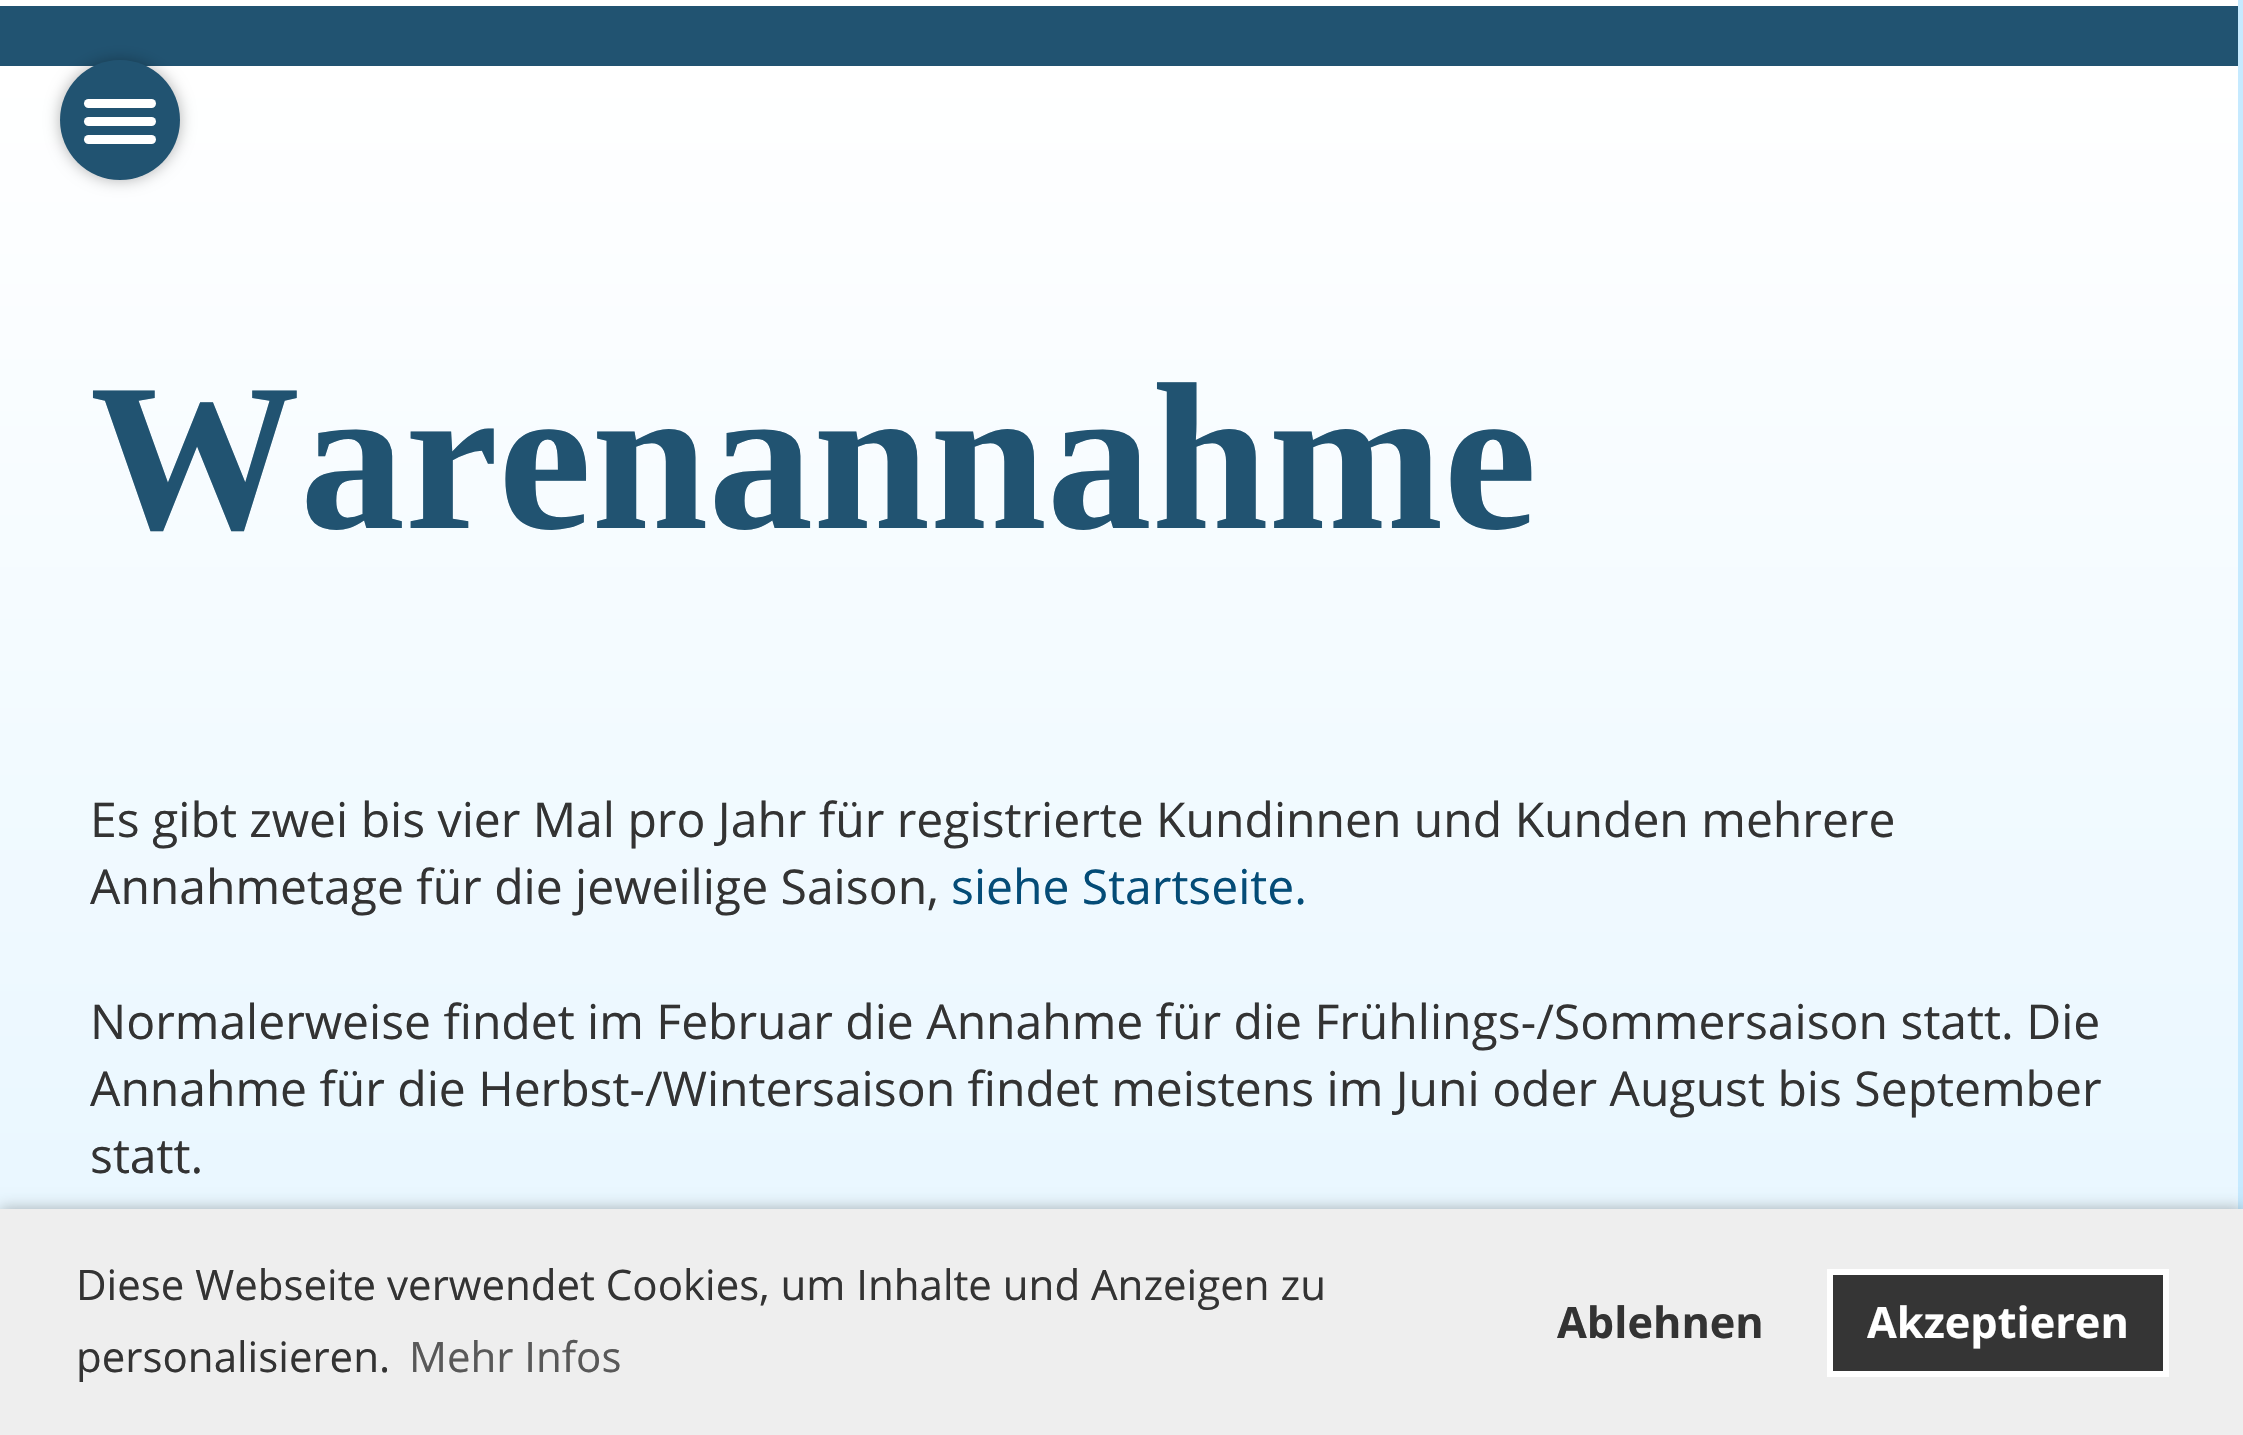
#include "include/core/SkBlurTypes.h"
#include "include/core/SkCanvas.h"
#include "include/core/SkData.h"
#include "include/core/SkFont.h"
#include "include/core/SkFontMgr.h"
#include "include/core/SkImage.h"
#include "include/core/SkMaskFilter.h"
#include "include/core/SkPaint.h"
#include "include/core/SkPathBuilder.h"
#include "include/core/SkTextBlob.h"
#include "include/effects/SkDashPathEffect.h"
#include "include/effects/SkGradientShader.h"
#include "include/utils/SkParsePath.h"

extern sk_sp<SkFontMgr> fontMgr;

void draw(SkCanvas* canvas) {
  SkPaint p;
  p.setAntiAlias(true);
  canvas->clear(SkColorSetRGB(198, 234, 255));
  p.setColor(SkColorSetRGB(33, 83, 113));
  canvas->drawRect(SkRect::MakeLTRB(0, 6, 2238, 66), p);
  p.setColor(SK_ColorWHITE);
  canvas->drawRect(SkRect::MakeLTRB(0, 66, 2238, 72), p);
  {
    const SkColor colors[] = {SkColorSetRGB(198, 234, 255), SK_ColorWHITE};
    const float stops[] = {0, 1};
    const SkPoint ends[] = {{1119, 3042}, {1119, 72}};
    p.setShader(SkGradientShader::MakeLinear(ends, colors, stops, 2, SkTileMode::kClamp));
    p.setAlpha(255);
  }
  canvas->drawRect(SkRect::MakeLTRB(0, 72, 2238, 1209), p);
  p.setShader(nullptr);
  p.setColor(SkColorSetARGB(77, 0, 0, 0));
  p.setMaskFilter(SkMaskFilter::MakeBlur(kNormal_SkBlurStyle, 7.5f));
  canvas->drawRoundRect(SkRect::MakeLTRB(60, 60, 180, 180), 60, 60, p);
  p.setMaskFilter(nullptr);
  p.setColor(SkColorSetRGB(33, 83, 113));
  canvas->drawCircle(120, 120, 60, p);
  p.setColor(SK_ColorWHITE);
  canvas->drawRoundRect(SkRect::MakeLTRB(84, 99, 156, 108), 4.5f, 4.5f, p);
  canvas->drawRoundRect(SkRect::MakeLTRB(84, 117, 156, 126), 4.5f, 4.5f, p);
  canvas->drawRoundRect(SkRect::MakeLTRB(84, 135, 156, 144), 4.5f, 4.5f, p);
  canvas->drawRect(SkRect::MakeLTRB(0, 0, 2238, 6), p);
  p.setColor(SkColorSetARGB(77, 0, 0, 0));
  p.setMaskFilter(SkMaskFilter::MakeBlur(kNormal_SkBlurStyle, 7.5f));
  canvas->drawRect(SkRect::MakeLTRB(0, 1209, 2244, 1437), p);
  p.setMaskFilter(nullptr);
  p.setColor(SkColorSetRGB(238, 238, 238));
  canvas->drawRect(SkRect::MakeLTRB(0, 1209, 2243, 1435), p);
  p.setColor(SkColorSetRGB(53, 53, 53));
  canvas->drawRect(SkRect::MakeLTRB(1830, 1272, 2166, 1374), p);
  p.setStyle(SkPaint::kStroke_Style);
  p.setStrokeWidth(6);
  p.setColor(SK_ColorWHITE);
  canvas->drawRect(SkRect::MakeLTRB(1830, 1272, 2166, 1374), p);
  SkFont font1(fontMgr->matchFamilyStyle("Liberation Serif", SkFontStyle::Bold()), 210);
  font1.setSubpixel(true);
  p.setStyle(SkPaint::kFill_Style);
  p.setColor(SkColorSetRGB(33, 83, 113));
  canvas->drawString("Warenannahme", 90, 528, font1, p);
  SkFont font2(fontMgr->matchFamilyStyle("Open Sans", SkFontStyle::Normal()), 48);
  font2.setSubpixel(true);
  p.setColor(SkColorSetRGB(51, 51, 51));
  canvas->drawString("Es gibt zwei bis vier Mal pro Jahr für registrierte Kundinnen und Kunden mehrere", 90, 837, font2, p);
  canvas->drawString("Annahmetage für die jeweilige Saison,", 90, 904, font2, p);
  p.setColor(SkColorSetRGB(4, 76, 119));
  canvas->drawString("siehe Startseite.", 951, 904, font2, p);
  p.setColor(SkColorSetRGB(51, 51, 51));
  canvas->drawString("Normalerweise findet im Februar die Annahme für die Frühlings-/Sommersaison statt. Die", 90, 1039, font2, p);
  canvas->drawString("Annahme für die Herbst-/Wintersaison findet meistens im Juni oder August bis September", 90, 1106, font2, p);
  canvas->drawString("statt.", 90, 1173, font2, p);
  SkFont font3(fontMgr->matchFamilyStyle("Open Sans", SkFontStyle::Normal()), 42);
  font3.setSubpixel(true);
  canvas->drawString("Diese Webseite verwendet Cookies, um Inhalte und Anzeigen zu", 76, 1300, font3, p);
  canvas->drawString("personalisieren.", 76, 1372, font3, p);
  p.setColor(SkColorSetRGB(88, 88, 88));
  canvas->drawString("Mehr Infos", 409, 1372, font3, p);
  SkFont font4(fontMgr->matchFamilyStyle("Open Sans", SkFontStyle::Bold()), 43.25f);
  font4.setSubpixel(true);
  p.setColor(SkColorSetRGB(51, 51, 51));
  canvas->drawString("Ablehnen", 1557, 1338, font4, p);
  p.setColor(SK_ColorWHITE);
  canvas->drawString("Akzeptieren", 1867, 1338, font4, p);
}
